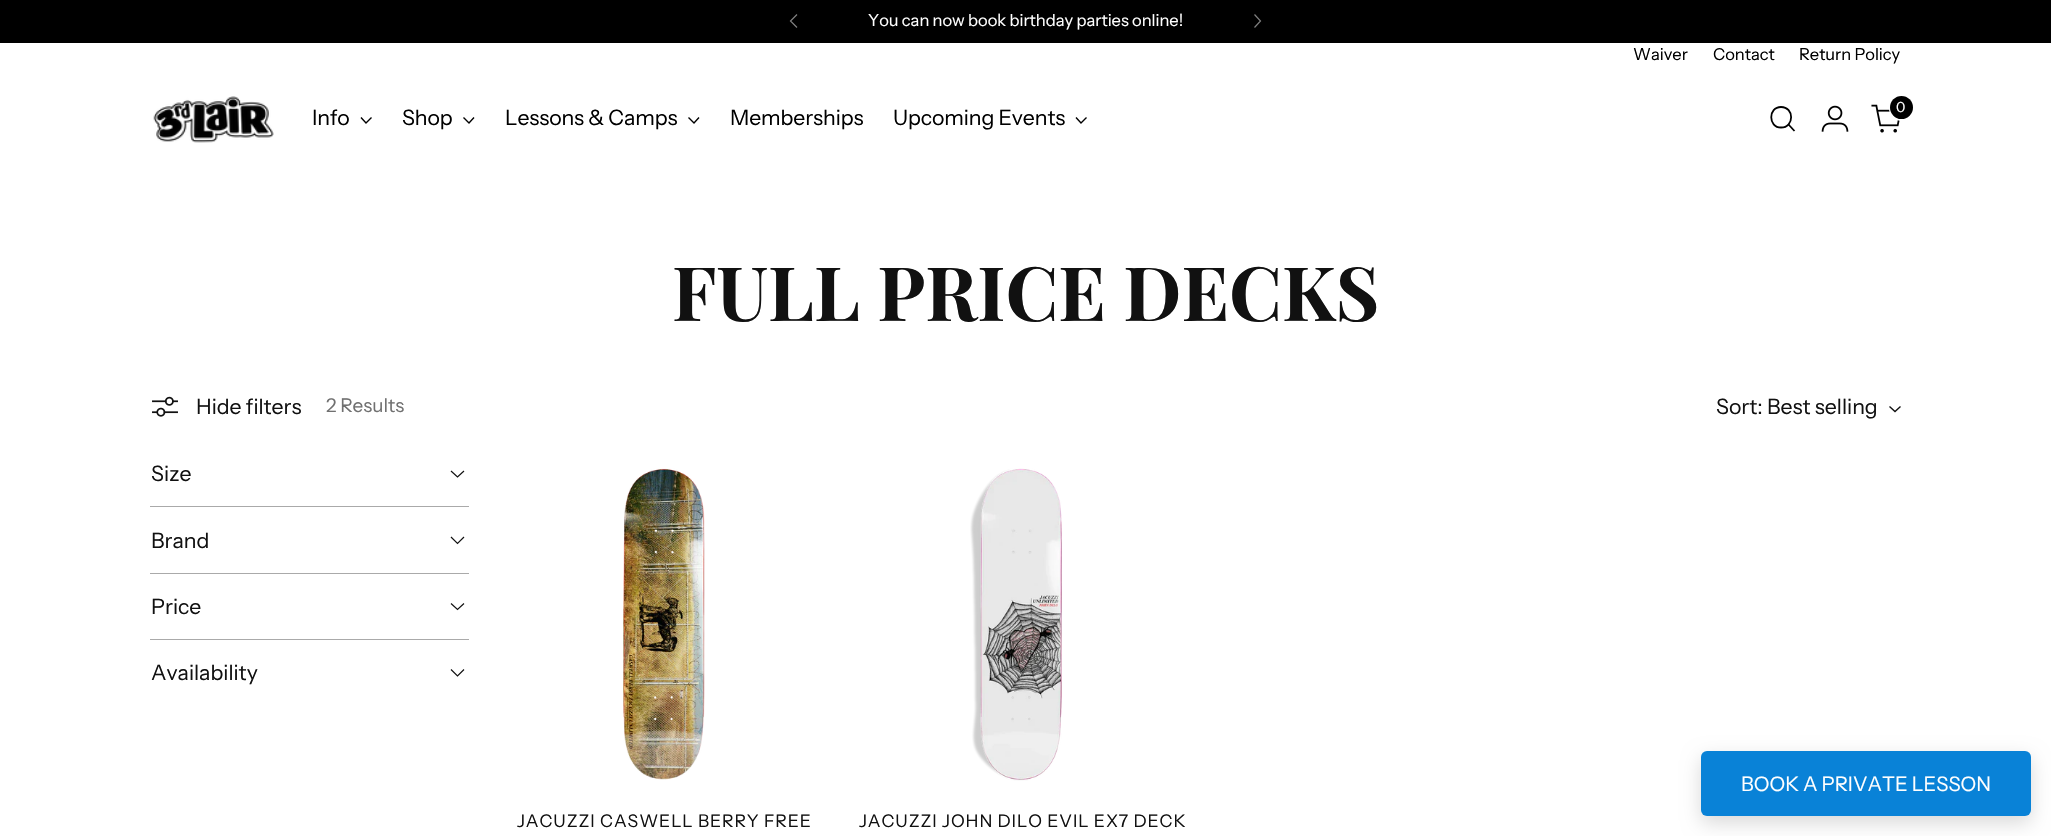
#include "include/core/SkBlurTypes.h"
#include "include/core/SkCanvas.h"
#include "include/core/SkData.h"
#include "include/core/SkFont.h"
#include "include/core/SkFontMgr.h"
#include "include/core/SkImage.h"
#include "include/core/SkMaskFilter.h"
#include "include/core/SkPaint.h"
#include "include/core/SkPathBuilder.h"
#include "include/core/SkTextBlob.h"
#include "include/effects/SkDashPathEffect.h"
#include "include/effects/SkGradientShader.h"
#include "include/utils/SkParsePath.h"

extern sk_sp<SkFontMgr> fontMgr;

void draw(SkCanvas* canvas) {
  SkPaint p;
  p.setAntiAlias(true);
  auto spacedText = [&](const char* s, float x, float y, const SkFont& font, const SkPaint& ink, float letter, float word) {
    std::vector<SkGlyphID> glyphs(font.countText(s, strlen(s), SkTextEncoding::kUTF8));
    std::vector<float> xs(glyphs.size());
    font.textToGlyphs(s, strlen(s), SkTextEncoding::kUTF8, glyphs);
    font.getXPos(glyphs, xs, x);
    float extra = 0;
    for (size_t i = 0; i < glyphs.size(); i++) {
      xs[i] += extra;
      extra += letter + word * (glyphs[i] == font.unicharToGlyph(' '));
    }
    canvas->drawTextBlob(SkTextBlob::MakeFromPosHGlyphs(glyphs, xs, y, font), 0, 0, ink);
  };
  canvas->clear(SK_ColorWHITE);
  p.setColor(SK_ColorBLACK);
  canvas->drawRect(SkRect::MakeLTRB(0, 0, 2051, 43), p);
  p.setStyle(SkPaint::kStroke_Style);
  p.setStrokeWidth(1.2f);
  p.setColor(SkColorSetRGB(128, 128, 128));
  canvas->drawPath(SkPathBuilder().moveTo(797, 14.5f).lineTo(790.5f, 21).lineTo(797, 27.5f).detach(), p);
  canvas->drawPath(SkPathBuilder().moveTo(1254.5f, 27.5f).lineTo(1260.5f, 21).lineTo(1254.5f, 14.5f).detach(), p);
  p.setStrokeWidth(1.8f);
  p.setStrokeCap(SkPaint::kRound_Cap);
  p.setColor(SK_ColorBLACK);
  canvas->drawPath(SkPathBuilder().moveTo(1781, 127.5f).cubicTo(1794.5f, 127.5f, 1794.5f, 107, 1781, 107).cubicTo(1768, 107, 1768, 127.5f, 1781, 127.5f).close().detach(), p);
  p.setStrokeCap(SkPaint::kButt_Cap);
  canvas->drawPath(SkPathBuilder().moveTo(1788.5f, 124.5f).lineTo(1794.5f, 131).detach(), p);
  canvas->drawImageRect(SkImages::DeferredFromEncodedData(SkData::MakeFromFileName("images/1.png")), SkRect::MakeLTRB(1821, 105, 1849, 132), SkSamplingOptions());
  canvas->drawImageRect(SkImages::DeferredFromEncodedData(SkData::MakeFromFileName("images/2.png")), SkRect::MakeLTRB(1871, 104, 1900, 133), SkSamplingOptions());
  p.setStrokeWidth(2);
  p.setColor(SK_ColorWHITE);
  canvas->drawCircle(1902, 108, 12, p);
  p.setStyle(SkPaint::kFill_Style);
  p.setColor(SK_ColorBLACK);
  canvas->drawCircle(1901.5f, 107.5f, 11.5f, p);
  canvas->drawImageRect(SkImages::DeferredFromEncodedData(SkData::MakeFromFileName("images/3.png")), SkRect::MakeLTRB(153, 96, 274, 143), SkSamplingOptions());
  p.setStyle(SkPaint::kStroke_Style);
  p.setStrokeWidth(1.4f);
  canvas->drawPath(SkPathBuilder().moveTo(361, 117.5f).lineTo(366, 123).lineTo(371.5f, 117.5f).detach(), p);
  canvas->drawPath(SkPathBuilder().moveTo(463.5f, 117.5f).lineTo(469, 123).lineTo(474, 117.5f).detach(), p);
  canvas->drawPath(SkPathBuilder().moveTo(688.5f, 117.5f).lineTo(694, 123).lineTo(699, 117.5f).detach(), p);
  canvas->drawPath(SkPathBuilder().moveTo(1076, 117.5f).lineTo(1081, 123).lineTo(1086.5f, 117.5f).detach(), p);
  canvas->drawImageRect(SkImages::DeferredFromEncodedData(SkData::MakeFromFileName("images/4.png")), SkRect::MakeLTRB(152, 396, 178, 417), SkSamplingOptions());
  p.setColor(SkColorSetRGB(17, 17, 17));
  canvas->drawPath(SkPathBuilder().moveTo(1889.5f, 406.5f).lineTo(1895, 411.5f).lineTo(1900.5f, 406.5f).detach(), p);
  p.setStrokeWidth(1.2f);
  canvas->drawPath(SkPathBuilder().moveTo(451, 471).lineTo(457.5f, 477).lineTo(464, 471).detach(), p);
  p.setStyle(SkPaint::kFill_Style);
  p.setColor(SkColorSetRGB(170, 170, 170));
  canvas->drawRect(SkRect::MakeLTRB(150, 506, 469, 507), p);
  p.setStyle(SkPaint::kStroke_Style);
  p.setColor(SkColorSetRGB(17, 17, 17));
  canvas->drawPath(SkPathBuilder().moveTo(451, 537).lineTo(457.5f, 543.5f).lineTo(464, 537).detach(), p);
  p.setStyle(SkPaint::kFill_Style);
  p.setColor(SkColorSetRGB(170, 170, 170));
  canvas->drawRect(SkRect::MakeLTRB(150, 573, 469, 574), p);
  p.setStyle(SkPaint::kStroke_Style);
  p.setColor(SkColorSetRGB(17, 17, 17));
  canvas->drawPath(SkPathBuilder().moveTo(451, 603.5f).lineTo(457.5f, 609.5f).lineTo(464, 603.5f).detach(), p);
  p.setStyle(SkPaint::kFill_Style);
  p.setColor(SkColorSetRGB(170, 170, 170));
  canvas->drawRect(SkRect::MakeLTRB(150, 639, 469, 640), p);
  p.setStyle(SkPaint::kStroke_Style);
  p.setColor(SkColorSetRGB(17, 17, 17));
  canvas->drawPath(SkPathBuilder().moveTo(451, 669.5f).lineTo(457.5f, 676).lineTo(464, 669.5f).detach(), p);
  canvas->drawImageRect(SkImages::DeferredFromEncodedData(SkData::MakeFromFileName("images/5.png")), SkRect::MakeLTRB(623, 468, 705, 780), SkSamplingOptions());
  canvas->drawImageRect(SkImages::DeferredFromEncodedData(SkData::MakeFromFileName("images/6.png")), SkRect::MakeLTRB(970, 468, 1062, 781), SkSamplingOptions());
  p.setStyle(SkPaint::kFill_Style);
  p.setColor(SkColorSetARGB(38, 0, 0, 0));
  p.setMaskFilter(SkMaskFilter::MakeBlur(kNormal_SkBlurStyle, 9.5f));
  canvas->drawRoundRect(SkRect::MakeLTRB(1701, 758, 2031, 823), 6, 6, p);
  p.setMaskFilter(nullptr);
  p.setColor(SkColorSetRGB(9, 130, 215));
  canvas->drawRoundRect(SkRect::MakeLTRB(1701, 751, 2031, 816), 6, 6, p);
  SkFont font1(fontMgr->matchFamilyStyle("Instrument Sans", SkFontStyle::Normal()), 16.5f);
  font1.setSubpixel(true);
  p.setColor(SK_ColorWHITE);
  canvas->drawString("You can now book birthday parties online!", 868, 26, font1, p);
  p.setColor(SK_ColorBLACK);
  canvas->drawString("Waiver", 1633, 60, font1, p);
  canvas->drawString("Contact", 1713, 60, font1, p);
  canvas->drawString("Return Policy", 1799, 60, font1, p);
  SkFont font2(fontMgr->matchFamilyStyle("Instrument Sans", SkFontStyle::Normal()), 14);
  font2.setSubpixel(true);
  p.setColor(SK_ColorWHITE);
  canvas->drawString("0", 1896, 112, font2, p);
  SkFont font3(fontMgr->matchFamilyStyle("Instrument Sans", SkFontStyle::Normal()), 21.25f);
  font3.setSubpixel(true);
  p.setColor(SK_ColorBLACK);
  spacedText("Info", 312, 125, font3, p, -0.1f, 0);
  spacedText("Shop", 402, 125, font3, p, -0.1f, 0);
  spacedText("Lessons & Camps", 505, 125, font3, p, -0.1f, 0);
  spacedText("Memberships", 730, 125, font3, p, -0.1f, 0);
  spacedText("Upcoming Events", 893, 125, font3, p, -0.1f, 0);
  SkFont font4(fontMgr->matchFamilyStyle("Playfair Display", SkFontStyle::Bold()), 75);
  font4.setSubpixel(true);
  p.setColor(SkColorSetRGB(17, 17, 17));
  canvas->drawString("FULL PRICE DECKS", 672, 321, font4, p);
  canvas->drawString("Hide filters", 196, 414, font3, p);
  SkFont font5(fontMgr->matchFamilyStyle("Instrument Sans", SkFontStyle::Normal()), 19);
  font5.setSubpixel(true);
  p.setColor(SkColorSetRGB(112, 112, 112));
  canvas->drawString("2 Results", 326, 412, font5, p);
  p.setColor(SkColorSetRGB(17, 17, 17));
  canvas->drawString("Sort: Best selling", 1716, 414, font3, p);
  canvas->drawString("Size", 151, 481, font3, p);
  canvas->drawString("Brand", 151, 548, font3, p);
  canvas->drawString("Price", 151, 614, font3, p);
  canvas->drawString("Availability", 151, 680, font3, p);
  SkFont font6(fontMgr->matchFamilyStyle("Instrument Sans", SkFontStyle::Normal()), 17.5f);
  font6.setSubpixel(true);
  spacedText("JACUZZI CASWELL BERRY FREE", 517, 827, font6, p, 0.9f, 0);
  spacedText("JACUZZI JOHN DILO EVIL EX7 DECK", 859, 827, font6, p, 0.9f, 0);
  SkFont font7(fontMgr->matchFamilyStyle("Instrument Sans", SkFontStyle::Normal()), 20);
  font7.setSubpixel(true);
  p.setColor(SK_ColorWHITE);
  canvas->drawString("BOOK A PRIVATE LESSON", 1741, 791, font7, p);
}
